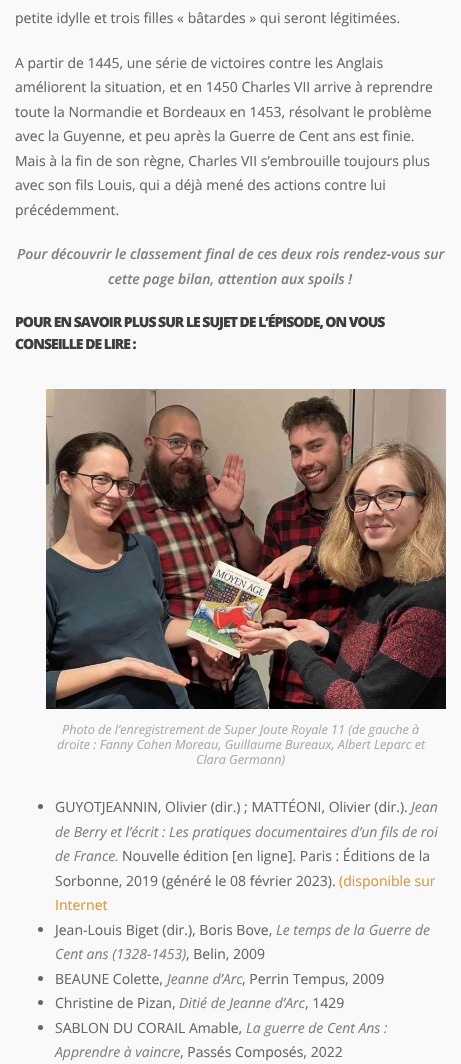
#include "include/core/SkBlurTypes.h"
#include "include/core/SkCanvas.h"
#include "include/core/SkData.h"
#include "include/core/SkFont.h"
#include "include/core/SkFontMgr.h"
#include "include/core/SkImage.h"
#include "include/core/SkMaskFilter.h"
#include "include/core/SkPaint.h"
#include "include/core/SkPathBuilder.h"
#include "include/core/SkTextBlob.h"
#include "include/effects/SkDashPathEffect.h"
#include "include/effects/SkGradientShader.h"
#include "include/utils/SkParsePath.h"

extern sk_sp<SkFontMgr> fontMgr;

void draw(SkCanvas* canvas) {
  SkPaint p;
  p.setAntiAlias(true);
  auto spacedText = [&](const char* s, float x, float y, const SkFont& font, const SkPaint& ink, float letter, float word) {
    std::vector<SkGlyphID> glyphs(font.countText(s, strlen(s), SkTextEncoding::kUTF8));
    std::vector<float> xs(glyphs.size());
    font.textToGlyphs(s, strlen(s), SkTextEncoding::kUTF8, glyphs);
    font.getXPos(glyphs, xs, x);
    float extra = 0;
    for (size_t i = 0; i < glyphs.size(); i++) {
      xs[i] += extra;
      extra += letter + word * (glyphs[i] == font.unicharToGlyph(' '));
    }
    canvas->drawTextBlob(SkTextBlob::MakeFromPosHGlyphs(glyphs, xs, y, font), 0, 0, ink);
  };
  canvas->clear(SkColorSetRGB(249, 249, 249));
  canvas->drawImageRect(SkImages::DeferredFromEncodedData(SkData::MakeFromFileName("images/1.png")), SkRect::MakeLTRB(46, 389, 446, 709), SkSamplingOptions());
  p.setColor(SkColorSetRGB(102, 102, 102));
  canvas->drawCircle(40.5f, 806.5f, 2.5f, p);
  canvas->drawCircle(40.5f, 929.5f, 2.5f, p);
  canvas->drawCircle(40.5f, 978.5f, 2.5f, p);
  canvas->drawCircle(40.5f, 1002.5f, 2.5f, p);
  canvas->drawCircle(40.5f, 1027.5f, 2.5f, p);
  SkFont font1(fontMgr->matchFamilyStyle("Open Sans", SkFontStyle::Normal()), 14);
  font1.setSubpixel(true);
  canvas->drawString("petite idylle et trois filles « bâtardes » qui seront légitimées.", 15, 23, font1, p);
  canvas->drawString("A partir de 1445, une série de victoires contre les Anglais", 15, 68, font1, p);
  canvas->drawString("améliorent la situation, et en 1450 Charles VII arrive à reprendre", 15, 92, font1, p);
  canvas->drawString("toute la Normandie et Bordeaux en 1453, résolvant le problème", 15, 117, font1, p);
  canvas->drawString("avec la Guyenne, et peu après la Guerre de Cent ans est finie.", 15, 141, font1, p);
  canvas->drawString("Mais à la fin de son règne, Charles VII s’embrouille toujours plus", 15, 166, font1, p);
  canvas->drawString("avec son fils Louis, qui a déjà mené des actions contre lui", 15, 190, font1, p);
  canvas->drawString("précédemment.", 15, 215, font1, p);
  SkFont font2(fontMgr->matchFamilyStyle("Open Sans", SkFontStyle(600, SkFontStyle::kNormal_Width, SkFontStyle::kItalic_Slant)), 14);
  font2.setSubpixel(true);
  p.setColor(SkColorSetRGB(128, 128, 128));
  canvas->drawString("Pour découvrir le classement final de ces deux rois rendez-vous sur", 17, 259, font2, p);
  canvas->drawString("cette page bilan, attention aux spoils !", 108, 284, font2, p);
  SkFont font3(fontMgr->matchFamilyStyle("Open Sans", SkFontStyle(800, SkFontStyle::kNormal_Width, SkFontStyle::kUpright_Slant)), 14);
  font3.setSubpixel(true);
  p.setColor(SkColorSetRGB(62, 62, 62));
  spacedText("POUR EN SAVOIR PLUS SUR LE SUJET DE L’ÉPISODE, ON VOUS", 15, 327, font3, p, -1, 0);
  spacedText("CONSEILLE DE LIRE :", 15, 349, font3, p, -1, 0);
  SkFont font4(fontMgr->matchFamilyStyle("Open Sans", SkFontStyle::Italic()), 12.6f);
  font4.setSubpixel(true);
  p.setColor(SkColorSetRGB(170, 170, 170));
  canvas->drawString("Photo de l’enregistrement de Super Joute Royale 11 (de gauche à", 62, 734, font4, p);
  canvas->drawString("droite : Fanny Cohen Moreau, Guillaume Bureaux, Albert Leparc et", 57, 749, font4, p);
  canvas->drawString("Clara Germann)", 196, 764, font4, p);
  p.setColor(SkColorSetRGB(102, 102, 102));
  canvas->drawString("GUYOTJEANNIN, Olivier (dir.) ; MATTÉONI, Olivier (dir.).", 55, 812, font1, p);
  SkFont font5(fontMgr->matchFamilyStyle("Open Sans", SkFontStyle::Italic()), 14);
  font5.setSubpixel(true);
  p.setColor(SkColorSetRGB(128, 128, 128));
  canvas->drawString("Jean", 411, 812, font5, p);
  canvas->drawString("de Berry et l’écrit : Les pratiques documentaires d’un fils de roi", 55, 837, font5, p);
  canvas->drawString("de France.", 55, 861, font5, p);
  p.setColor(SkColorSetRGB(102, 102, 102));
  canvas->drawString("Nouvelle édition [en ligne]. Paris : Éditions de la", 122, 861, font1, p);
  canvas->drawString("Sorbonne, 2019 (généré le 08 février 2023).", 55, 886, font1, p);
  p.setColor(SkColorSetRGB(221, 153, 51));
  canvas->drawString("(disponible sur", 339, 886, font1, p);
  canvas->drawString("Internet", 55, 910, font1, p);
  p.setColor(SkColorSetRGB(102, 102, 102));
  canvas->drawString("Jean-Louis Biget (dir.), Boris Bove,", 55, 935, font1, p);
  p.setColor(SkColorSetRGB(128, 128, 128));
  canvas->drawString("Le temps de la Guerre de", 276, 935, font5, p);
  canvas->drawString("Cent ans (1328-1453)", 55, 959, font5, p);
  p.setColor(SkColorSetRGB(102, 102, 102));
  canvas->drawString(", Belin, 2009", 186, 959, font1, p);
  canvas->drawString("BEAUNE Colette,", 55, 984, font1, p);
  p.setColor(SkColorSetRGB(128, 128, 128));
  canvas->drawString("Jeanne d’Arc", 167, 984, font5, p);
  p.setColor(SkColorSetRGB(102, 102, 102));
  canvas->drawString(", Perrin Tempus, 2009", 242, 984, font1, p);
  canvas->drawString("Christine de Pizan,", 55, 1008, font1, p);
  p.setColor(SkColorSetRGB(128, 128, 128));
  canvas->drawString("Ditié de Jeanne d’Arc", 179, 1008, font5, p);
  p.setColor(SkColorSetRGB(102, 102, 102));
  canvas->drawString(", 1429", 305, 1008, font1, p);
  canvas->drawString("SABLON DU CORAIL Amable,", 55, 1033, font1, p);
  p.setColor(SkColorSetRGB(128, 128, 128));
  canvas->drawString("La guerre de Cent Ans :", 246, 1033, font5, p);
  canvas->drawString("Apprendre à vaincre", 55, 1057, font5, p);
  p.setColor(SkColorSetRGB(102, 102, 102));
  canvas->drawString(", Passés Composés, 2022", 180, 1057, font1, p);
}
